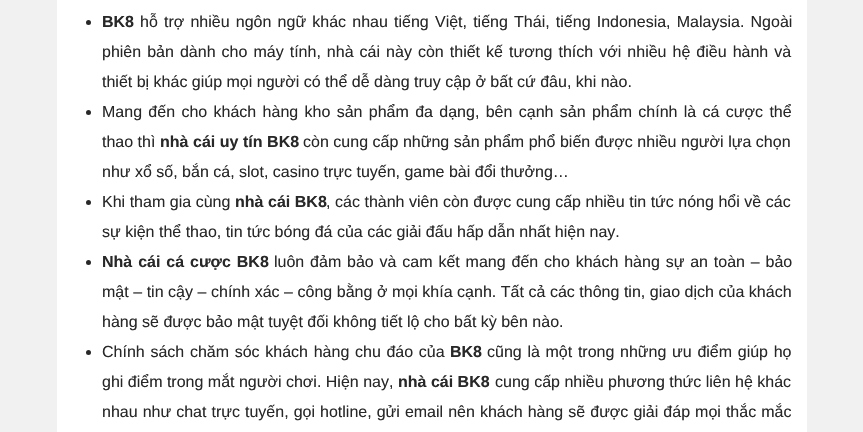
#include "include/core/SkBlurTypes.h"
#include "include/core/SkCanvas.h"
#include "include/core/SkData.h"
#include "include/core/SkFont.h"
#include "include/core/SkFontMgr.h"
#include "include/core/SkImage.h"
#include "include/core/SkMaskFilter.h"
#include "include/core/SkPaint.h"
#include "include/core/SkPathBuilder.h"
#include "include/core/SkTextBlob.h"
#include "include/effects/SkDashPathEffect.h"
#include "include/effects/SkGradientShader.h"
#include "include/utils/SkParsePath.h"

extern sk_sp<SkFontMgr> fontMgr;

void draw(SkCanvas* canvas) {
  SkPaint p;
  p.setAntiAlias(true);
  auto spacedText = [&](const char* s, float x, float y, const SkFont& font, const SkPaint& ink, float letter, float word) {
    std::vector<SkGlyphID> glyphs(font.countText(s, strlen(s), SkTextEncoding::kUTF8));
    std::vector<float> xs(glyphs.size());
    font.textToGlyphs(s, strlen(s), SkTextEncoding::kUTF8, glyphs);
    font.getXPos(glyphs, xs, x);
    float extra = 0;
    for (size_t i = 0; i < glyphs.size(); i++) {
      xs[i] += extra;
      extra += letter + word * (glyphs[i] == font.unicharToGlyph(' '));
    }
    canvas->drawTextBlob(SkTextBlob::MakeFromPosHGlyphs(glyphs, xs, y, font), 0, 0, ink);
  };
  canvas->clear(SkColorSetRGB(242, 241, 241));
  p.setColor(SK_ColorWHITE);
  canvas->drawRect(SkRect::MakeLTRB(57, 0, 807, 432), p);
  p.setColor(SkColorSetRGB(40, 40, 40));
  canvas->drawCircle(88.5f, 22.5f, 2.5f, p);
  canvas->drawCircle(88.5f, 112.5f, 2.5f, p);
  canvas->drawCircle(88.5f, 202.5f, 2.5f, p);
  canvas->drawCircle(88.5f, 262.5f, 2.5f, p);
  canvas->drawCircle(88.5f, 352.5f, 2.5f, p);
  SkFont font1(fontMgr->matchFamilyStyle("Liberation Sans", SkFontStyle::Bold()), 16);
  font1.setSubpixel(true);
  canvas->drawString("BK8", 102, 27, font1, p);
  SkFont font2(fontMgr->matchFamilyStyle("Liberation Sans", SkFontStyle::Normal()), 16);
  font2.setSubpixel(true);
  spacedText("hỗ trợ nhiều ngôn ngữ khác nhau tiếng Việt, tiếng Thái, tiếng Indonesia, Malaysia. Ngoài", 140, 27, font2, p, 0, 1.75f);
  spacedText("phiên bản dành cho máy tính, nhà cái này còn thiết kế tương thích với nhiều hệ điều hành và", 102, 57, font2, p, 0, 1.6f);
  canvas->drawString("thiết bị khác giúp mọi người có thể dễ dàng truy cập ở bất cứ đâu, khi nào.", 102, 87, font2, p);
  spacedText("Mang đến cho khách hàng kho sản phẩm đa dạng, bên cạnh sản phẩm chính là cá cược thể", 102, 117, font2, p, 0, 1.9f);
  canvas->drawString("thao thì", 102, 147, font2, p);
  spacedText("nhà cái uy tín BK8", 160, 147, font1, p, 0, 0.1f);
  spacedText("còn cung cấp những sản phẩm phổ biến được nhiều người lựa chọn", 303, 147, font2, p, 0, 0.1f);
  canvas->drawString("như xổ số, bắn cá, slot, casino trực tuyến, game bài đổi thưởng…", 102, 177, font2, p);
  spacedText("Khi tham gia cùng", 102, 207, font2, p, 0, 0.1f);
  spacedText("nhà cái BK8", 235, 207, font1, p, 0, 0.1f);
  spacedText(", các thành viên còn được cung cấp nhiều tin tức nóng hổi về các", 326, 207, font2, p, 0, 0.1f);
  canvas->drawString("sự kiện thể thao, tin tức bóng đá của các giải đấu hấp dẫn nhất hiện nay.", 102, 237, font2, p);
  spacedText("Nhà cái cá cược BK8", 102, 267, font1, p, 0, 1.5f);
  spacedText("luôn đảm bảo và cam kết mang đến cho khách hàng sự an toàn – bảo", 274, 267, font2, p, 0, 1.4f);
  spacedText("mật – tin cậy – chính xác – công bằng ở mọi khía cạnh. Tất cả các thông tin, giao dịch của khách", 102, 297, font2, p, 0, 0.1f);
  canvas->drawString("hàng sẽ được bảo mật tuyệt đối không tiết lộ cho bất kỳ bên nào.", 102, 327, font2, p);
  spacedText("Chính sách chăm sóc khách hàng chu đáo của", 102, 357, font2, p, 0, 1.25f);
  canvas->drawString("BK8", 450, 357, font1, p);
  spacedText("cũng là một trong những ưu điểm giúp họ", 487, 357, font2, p, 0, 1.25f);
  canvas->drawString("ghi điểm trong mắt người chơi. Hiện nay,", 102, 387, font2, p);
  canvas->drawString("nhà cái BK8", 398, 387, font1, p);
  canvas->drawString("cung cấp nhiều phương thức liên hệ khác", 495, 387, font2, p);
  spacedText("nhau như chat trực tuyến, gọi hotline, gửi email nên khách hàng sẽ được giải đáp mọi thắc mắc", 102, 417, font2, p, 0, 0.6f);
}
